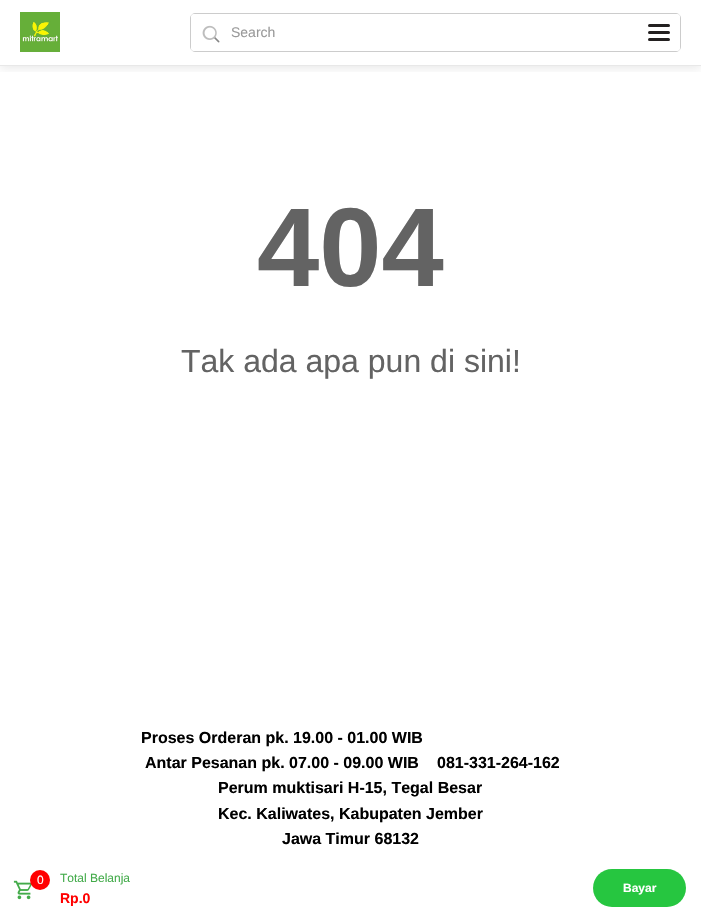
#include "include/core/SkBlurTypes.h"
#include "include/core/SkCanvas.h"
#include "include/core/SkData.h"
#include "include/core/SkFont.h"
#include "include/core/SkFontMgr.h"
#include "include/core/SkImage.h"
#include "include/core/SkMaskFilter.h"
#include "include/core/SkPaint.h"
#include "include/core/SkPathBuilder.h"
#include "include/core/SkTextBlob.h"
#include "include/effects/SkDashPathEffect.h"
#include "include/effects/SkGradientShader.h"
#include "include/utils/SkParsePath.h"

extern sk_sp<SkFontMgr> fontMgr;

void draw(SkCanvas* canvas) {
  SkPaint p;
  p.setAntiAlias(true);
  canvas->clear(SK_ColorWHITE);
  canvas->save();
  canvas->clipRect(SkRect::MakeLTRB(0, 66, 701, 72));
  p.setColor(SkColorSetARGB(23, 0, 0, 0));
  p.setMaskFilter(SkMaskFilter::MakeBlur(kNormal_SkBlurStyle, 5));
  canvas->drawRect(SkRect::MakeLTRB(0, 1, 701, 68), p);
  p.setMaskFilter(nullptr);
  canvas->restore();
  p.setColor(SkColorSetRGB(232, 232, 232));
  canvas->drawRect(SkRect::MakeLTRB(0, 65, 701, 66), p);
  canvas->drawImageRect(SkImages::DeferredFromEncodedData(SkData::MakeFromFileName("images/1.png")), SkRect::MakeLTRB(20, 12, 60, 52), SkSamplingOptions());
  p.setStyle(SkPaint::kStroke_Style);
  p.setStrokeWidth(1);
  p.setColor(SkColorSetRGB(204, 204, 204));
  canvas->drawRoundRect(SkRect::MakeLTRB(190.5f, 13.5f, 680.5f, 51.5f), 4.5f, 4.5f, p);
  p.setStyle(SkPaint::kFill_Style);
  p.setColor(SK_ColorWHITE);
  canvas->drawRoundRect(SkRect::MakeLTRB(191, 14, 680, 51), 3, 3, p);
  canvas->drawImageRect(SkImages::DeferredFromEncodedData(SkData::MakeFromFileName("images/2.png")), SkRect::MakeLTRB(202, 25, 220, 43), SkSamplingOptions());
  p.setColor(SkColorSetRGB(35, 32, 32));
  canvas->drawRoundRect(SkRect::MakeLTRB(648, 24, 670, 27), 1.5f, 1.5f, p);
  canvas->drawRoundRect(SkRect::MakeLTRB(648, 31, 670, 34), 1.5f, 1.5f, p);
  canvas->drawRoundRect(SkRect::MakeLTRB(648, 38, 670, 41), 1.5f, 1.5f, p);
  canvas->drawImageRect(SkImages::DeferredFromEncodedData(SkData::MakeFromFileName("images/3.png")), SkRect::MakeLTRB(13, 880, 32, 900), SkSamplingOptions());
  p.setColor(SkColorSetRGB(255, 0, 0));
  canvas->drawCircle(40, 880, 10, p);
  p.setColor(SkColorSetRGB(38, 198, 64));
  canvas->drawRoundRect(SkRect::MakeLTRB(593, 869, 686, 907), 19, 19, p);
  SkFont font1(fontMgr->matchFamilyStyle("Liberation Sans", SkFontStyle::Normal()), 14);
  font1.setSubpixel(true);
  p.setColor(SkColorSetRGB(153, 153, 153));
  canvas->drawString("Search", 231, 37, font1, p);
  SkFont font2(fontMgr->matchFamilyStyle("Liberation Sans", SkFontStyle::Bold()), 112);
  font2.setSubpixel(true);
  p.setColor(SkColorSetRGB(99, 99, 99));
  canvas->drawString("404", 257, 286, font2, p);
  SkFont font3(fontMgr->matchFamilyStyle("Liberation Sans", SkFontStyle::Normal()), 32);
  font3.setSubpixel(true);
  canvas->drawString("Tak ada apa pun di sini!", 181, 372, font3, p);
  SkFont font4(fontMgr->matchFamilyStyle("Liberation Sans", SkFontStyle::Bold()), 16);
  font4.setSubpixel(true);
  p.setColor(SK_ColorBLACK);
  canvas->drawString("Proses Orderan pk. 19.00 - 01.00 WIB", 141, 743, font4, p);
  canvas->drawString("Antar Pesanan pk. 07.00 - 09.00 WIB", 145, 768, font4, p);
  canvas->drawString("081-331-264-162", 437, 768, font4, p);
  canvas->drawString("Perum muktisari H-15, Tegal Besar", 218, 793, font4, p);
  canvas->drawString("Kec. Kaliwates, Kabupaten Jember", 218, 819, font4, p);
  canvas->drawString("Jawa Timur 68132", 282, 844, font4, p);
  SkFont font5(fontMgr->matchFamilyStyle("Liberation Sans", SkFontStyle::Normal()), 12);
  font5.setSubpixel(true);
  p.setColor(SK_ColorWHITE);
  canvas->drawString("0", 37, 884, font5, p);
  p.setColor(SkColorSetRGB(67, 171, 74));
  canvas->drawString("Total Belanja", 60, 882, font5, p);
  SkFont font6(fontMgr->matchFamilyStyle("Liberation Sans", SkFontStyle::Bold()), 14);
  font6.setSubpixel(true);
  p.setColor(SkColorSetRGB(255, 0, 0));
  canvas->drawString("Rp.0", 60, 903, font6, p);
  SkFont font7(fontMgr->matchFamilyStyle("Liberation Sans", SkFontStyle::Bold()), 12);
  font7.setSubpixel(true);
  p.setColor(SK_ColorWHITE);
  canvas->drawString("Bayar", 623, 892, font7, p);
}
